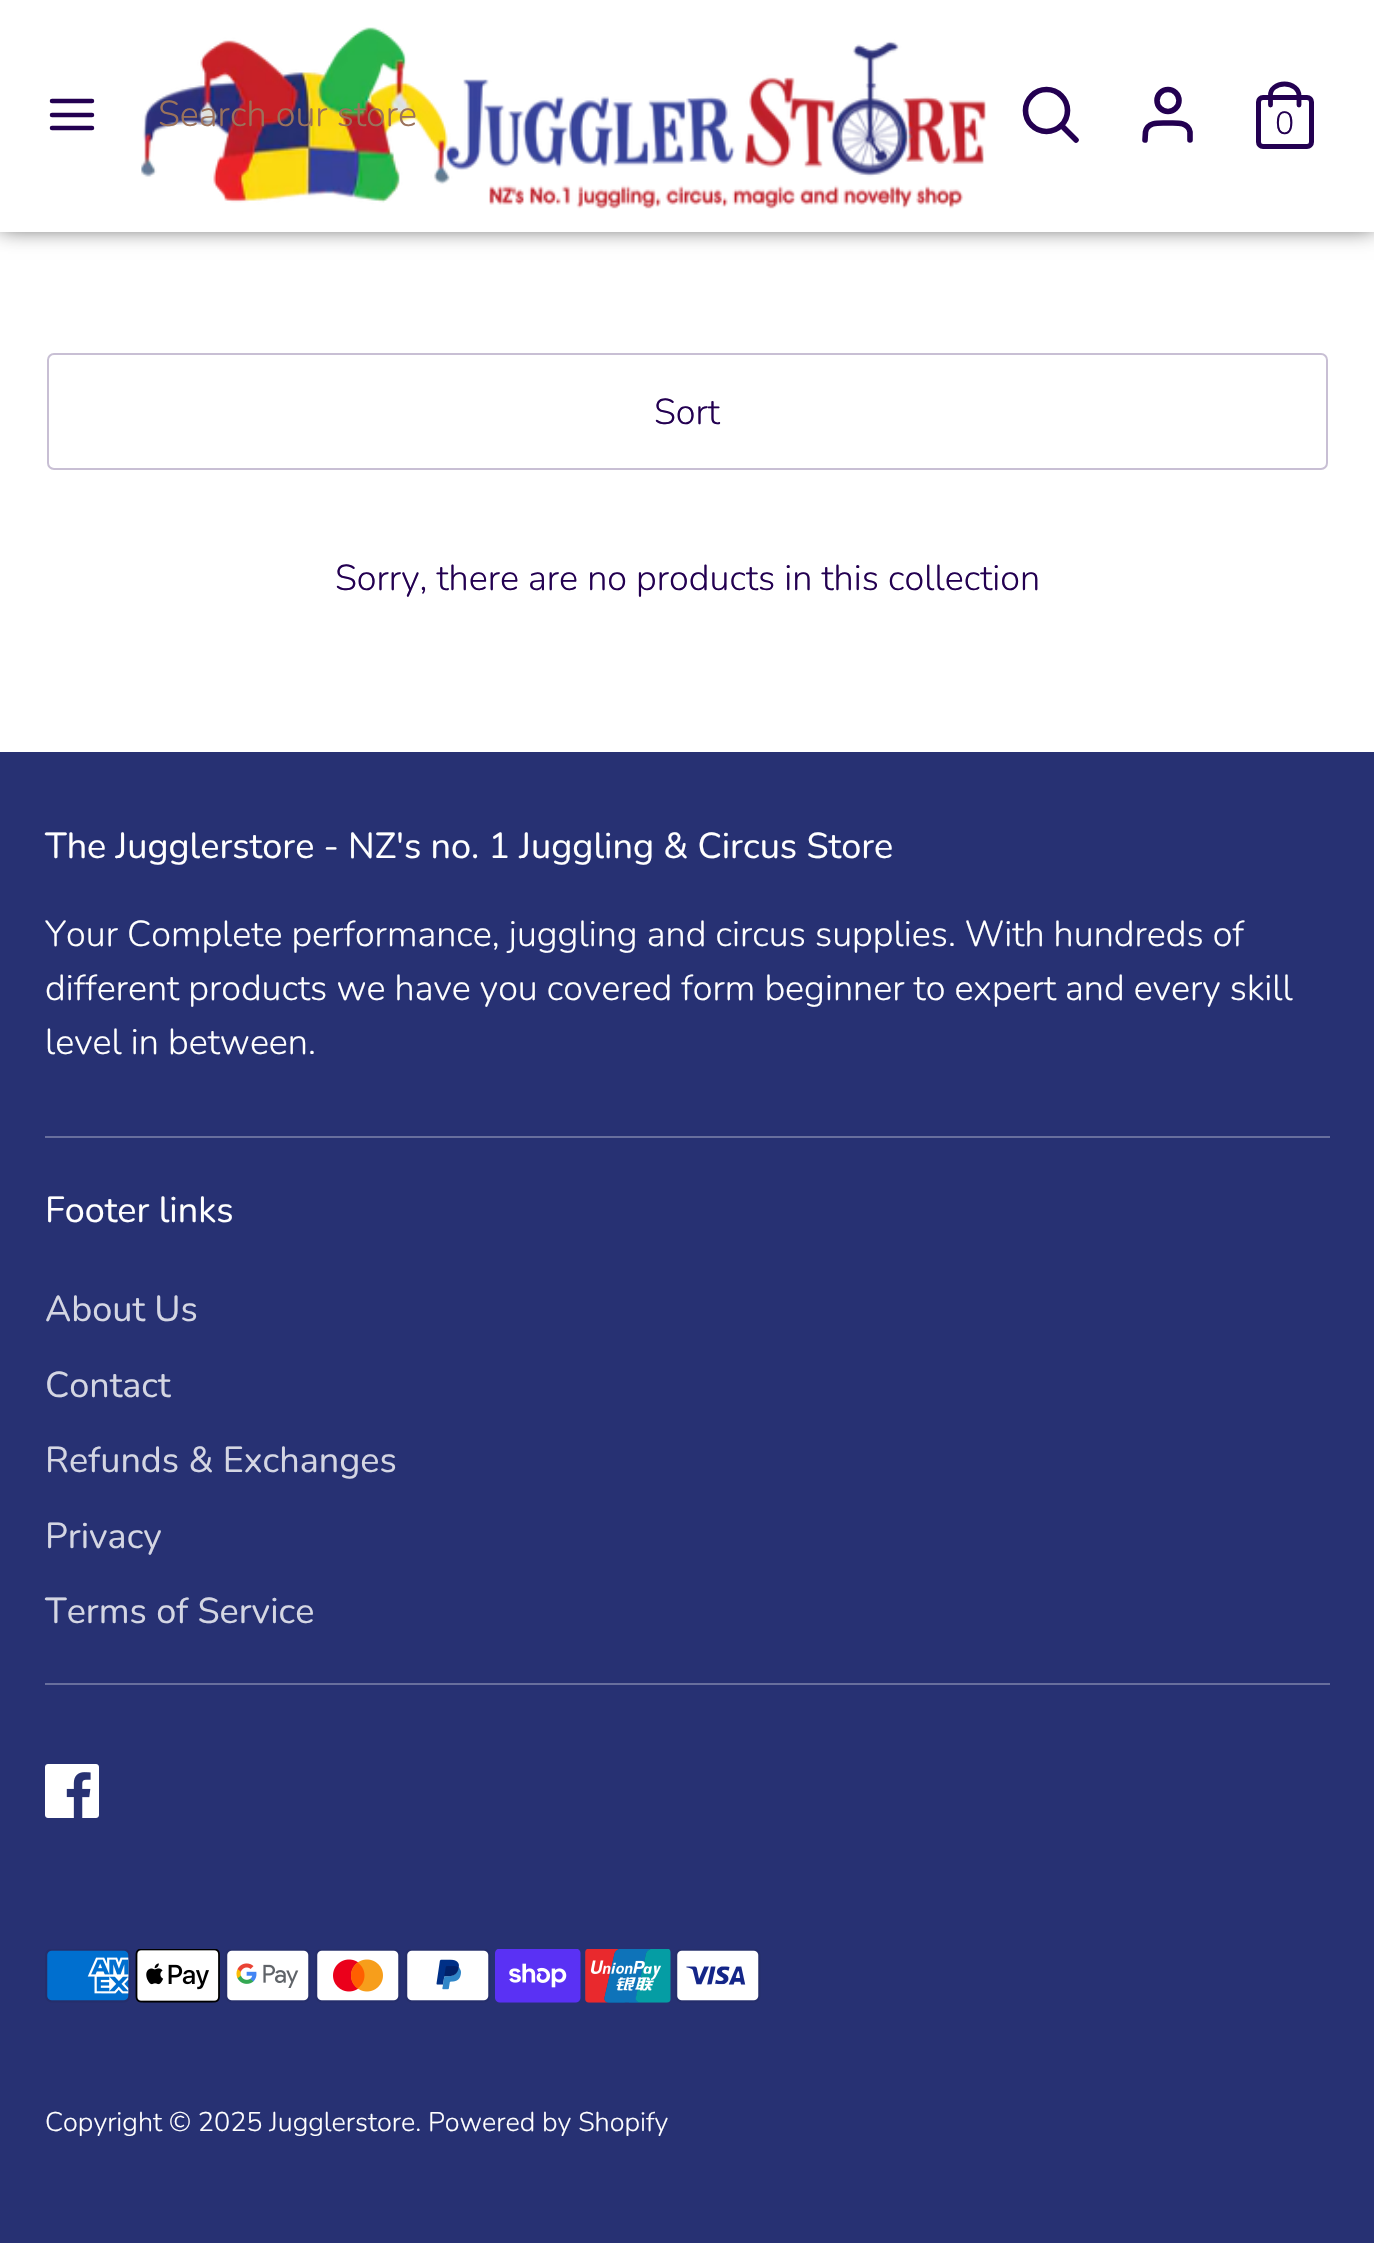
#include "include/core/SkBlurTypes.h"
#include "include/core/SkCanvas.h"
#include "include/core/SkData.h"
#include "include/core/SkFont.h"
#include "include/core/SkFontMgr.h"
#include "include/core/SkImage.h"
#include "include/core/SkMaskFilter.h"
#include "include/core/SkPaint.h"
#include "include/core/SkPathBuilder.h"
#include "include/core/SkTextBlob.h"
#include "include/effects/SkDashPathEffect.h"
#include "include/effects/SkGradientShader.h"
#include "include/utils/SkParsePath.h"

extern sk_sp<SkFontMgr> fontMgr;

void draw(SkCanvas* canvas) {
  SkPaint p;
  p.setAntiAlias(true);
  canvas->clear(SK_ColorWHITE);
  p.setColor(SkColorSetARGB(191, 0, 0, 0));
  p.setMaskFilter(SkMaskFilter::MakeBlur(kNormal_SkBlurStyle, 11));
  canvas->drawRect(SkRect::MakeLTRB(0, -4, 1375, 227), p);
  p.setMaskFilter(nullptr);
  p.setColor(SK_ColorWHITE);
  canvas->drawRect(SkRect::MakeLTRB(0, 0, 1374, 232), p);
  p.setStyle(SkPaint::kStroke_Style);
  p.setStrokeWidth(4.5f);
  p.setStrokeCap(SkPaint::kRound_Cap);
  p.setColor(SkColorSetRGB(35, 0, 81));
  canvas->drawPath(SkPathBuilder().moveTo(52, 115).lineTo(92, 115).moveTo(52, 101).lineTo(92, 101).moveTo(52, 128).lineTo(92, 128).detach(), p);
  canvas->drawImageRect(SkImages::DeferredFromEncodedData(SkData::MakeFromFileName("images/1.png")), SkRect::MakeLTRB(141, 27, 986, 209), SkSamplingOptions());
  p.setStrokeWidth(5.6f);
  p.setStrokeCap(SkPaint::kButt_Cap);
  canvas->drawCircle(1046.5f, 110.5f, 21, p);
  p.setStrokeCap(SkPaint::kRound_Cap);
  canvas->drawPath(SkPathBuilder().moveTo(1076, 140).lineTo(1061.5f, 125.5f).detach(), p);
  canvas->drawPath(SkPathBuilder().moveTo(1190, 140).lineTo(1190, 132).cubicTo(1188, 121.5f, 1176, 123, 1168, 123).cubicTo(1159.5f, 123, 1147.5f, 121.5f, 1145.5f, 132).lineTo(1145, 140).detach(), p);
  p.setStrokeCap(SkPaint::kButt_Cap);
  canvas->drawCircle(1168, 100.5f, 11, p);
  p.setStrokeWidth(5);
  canvas->drawRoundRect(SkRect::MakeLTRB(1258.5f, 97.5f, 1311.5f, 146.5f), 4.5f, 4.5f, p);
  p.setStrokeWidth(4.8f);
  p.setStrokeCap(SkPaint::kRound_Cap);
  canvas->drawPath(SkPathBuilder().moveTo(1270.5f, 105).lineTo(1270.5f, 95.5f).cubicTo(1270, 89, 1276.5f, 84, 1284.5f, 84).cubicTo(1292.5f, 84, 1299, 89, 1299, 95.5f).lineTo(1299, 105).detach(), p);
  p.setStrokeWidth(2);
  p.setStrokeCap(SkPaint::kButt_Cap);
  p.setColor(SkColorSetRGB(200, 191, 212));
  canvas->drawRoundRect(SkRect::MakeLTRB(48, 354, 1327, 469), 6, 6, p);
  p.setStyle(SkPaint::kFill_Style);
  p.setColor(SkColorSetRGB(39, 49, 115));
  canvas->drawRect(SkRect::MakeLTRB(0, 752, 1374, 2243), p);
  p.setColor(SkColorSetRGB(104, 111, 157));
  canvas->drawRect(SkRect::MakeLTRB(45, 1136, 1330, 1138), p);
  canvas->drawRect(SkRect::MakeLTRB(45, 1683, 1330, 1685), p);
  canvas->drawImageRect(SkImages::DeferredFromEncodedData(SkData::MakeFromFileName("images/2.png")), SkRect::MakeLTRB(45, 1764, 99, 1818), SkSamplingOptions());
  canvas->drawImageRect(SkImages::DeferredFromEncodedData(SkData::MakeFromFileName("images/3.png")), SkRect::MakeLTRB(45, 1949, 131, 2003), SkSamplingOptions());
  canvas->drawImageRect(SkImages::DeferredFromEncodedData(SkData::MakeFromFileName("images/4.png")), SkRect::MakeLTRB(135, 1949, 220, 2003), SkSamplingOptions());
  canvas->drawImageRect(SkImages::DeferredFromEncodedData(SkData::MakeFromFileName("images/5.png")), SkRect::MakeLTRB(225, 1949, 311, 2003), SkSamplingOptions());
  canvas->drawImageRect(SkImages::DeferredFromEncodedData(SkData::MakeFromFileName("images/6.png")), SkRect::MakeLTRB(315, 1949, 401, 2003), SkSamplingOptions());
  canvas->drawImageRect(SkImages::DeferredFromEncodedData(SkData::MakeFromFileName("images/7.png")), SkRect::MakeLTRB(405, 1949, 491, 2003), SkSamplingOptions());
  canvas->drawImageRect(SkImages::DeferredFromEncodedData(SkData::MakeFromFileName("images/8.png")), SkRect::MakeLTRB(495, 1949, 581, 2003), SkSamplingOptions());
  canvas->drawImageRect(SkImages::DeferredFromEncodedData(SkData::MakeFromFileName("images/9.png")), SkRect::MakeLTRB(585, 1949, 671, 2003), SkSamplingOptions());
  canvas->drawImageRect(SkImages::DeferredFromEncodedData(SkData::MakeFromFileName("images/10.png")), SkRect::MakeLTRB(675, 1949, 761, 2003), SkSamplingOptions());
  SkFont font1(fontMgr->matchFamilyStyle("Nunito", SkFontStyle(300, SkFontStyle::kNormal_Width, SkFontStyle::kUpright_Slant)), 36);
  font1.setSubpixel(true);
  p.setColor(SkColorSetRGB(155, 114, 91));
  canvas->drawString("Search our store", 158, 126, font1, p);
  SkFont font2(fontMgr->matchFamilyStyle("Nunito", SkFontStyle(300, SkFontStyle::kNormal_Width, SkFontStyle::kUpright_Slant)), 32);
  font2.setSubpixel(true);
  p.setColor(SkColorSetRGB(35, 0, 81));
  canvas->drawString("0", 1275, 134, font2, p);
  canvas->drawString("Sort", 654, 424, font1, p);
  canvas->drawString("Sorry, there are no products in this collection", 335, 590, font1, p);
  SkFont font3(fontMgr->matchFamilyStyle("Nunito", SkFontStyle::Normal()), 36);
  font3.setSubpixel(true);
  p.setColor(SK_ColorWHITE);
  canvas->drawString("The Jugglerstore - NZ's no. 1 Juggling & Circus Store", 45, 858, font3, p);
  canvas->drawString("Your Complete performance, juggling and circus supplies. With hundreds of", 45, 946, font1, p);
  canvas->drawString("different products we have you covered form beginner to expert and every skill", 45, 1000, font1, p);
  canvas->drawString("level in between.", 45, 1054, font1, p);
  canvas->drawString("Footer links", 45, 1222, font3, p);
  p.setColor(SkColorSetRGB(212, 214, 227));
  canvas->drawString("About Us", 45, 1321, font3, p);
  canvas->drawString("Contact", 45, 1397, font3, p);
  canvas->drawString("Refunds & Exchanges", 45, 1472, font3, p);
  canvas->drawString("Privacy", 45, 1548, font3, p);
  canvas->drawString("Terms of Service", 45, 1623, font3, p);
  SkFont font4(fontMgr->matchFamilyStyle("Nunito", SkFontStyle(300, SkFontStyle::kNormal_Width, SkFontStyle::kUpright_Slant)), 27);
  font4.setSubpixel(true);
  p.setColor(SK_ColorWHITE);
  canvas->drawString("Copyright © 2025 Jugglerstore. Powered by Shopify", 45, 2131, font4, p);
}
